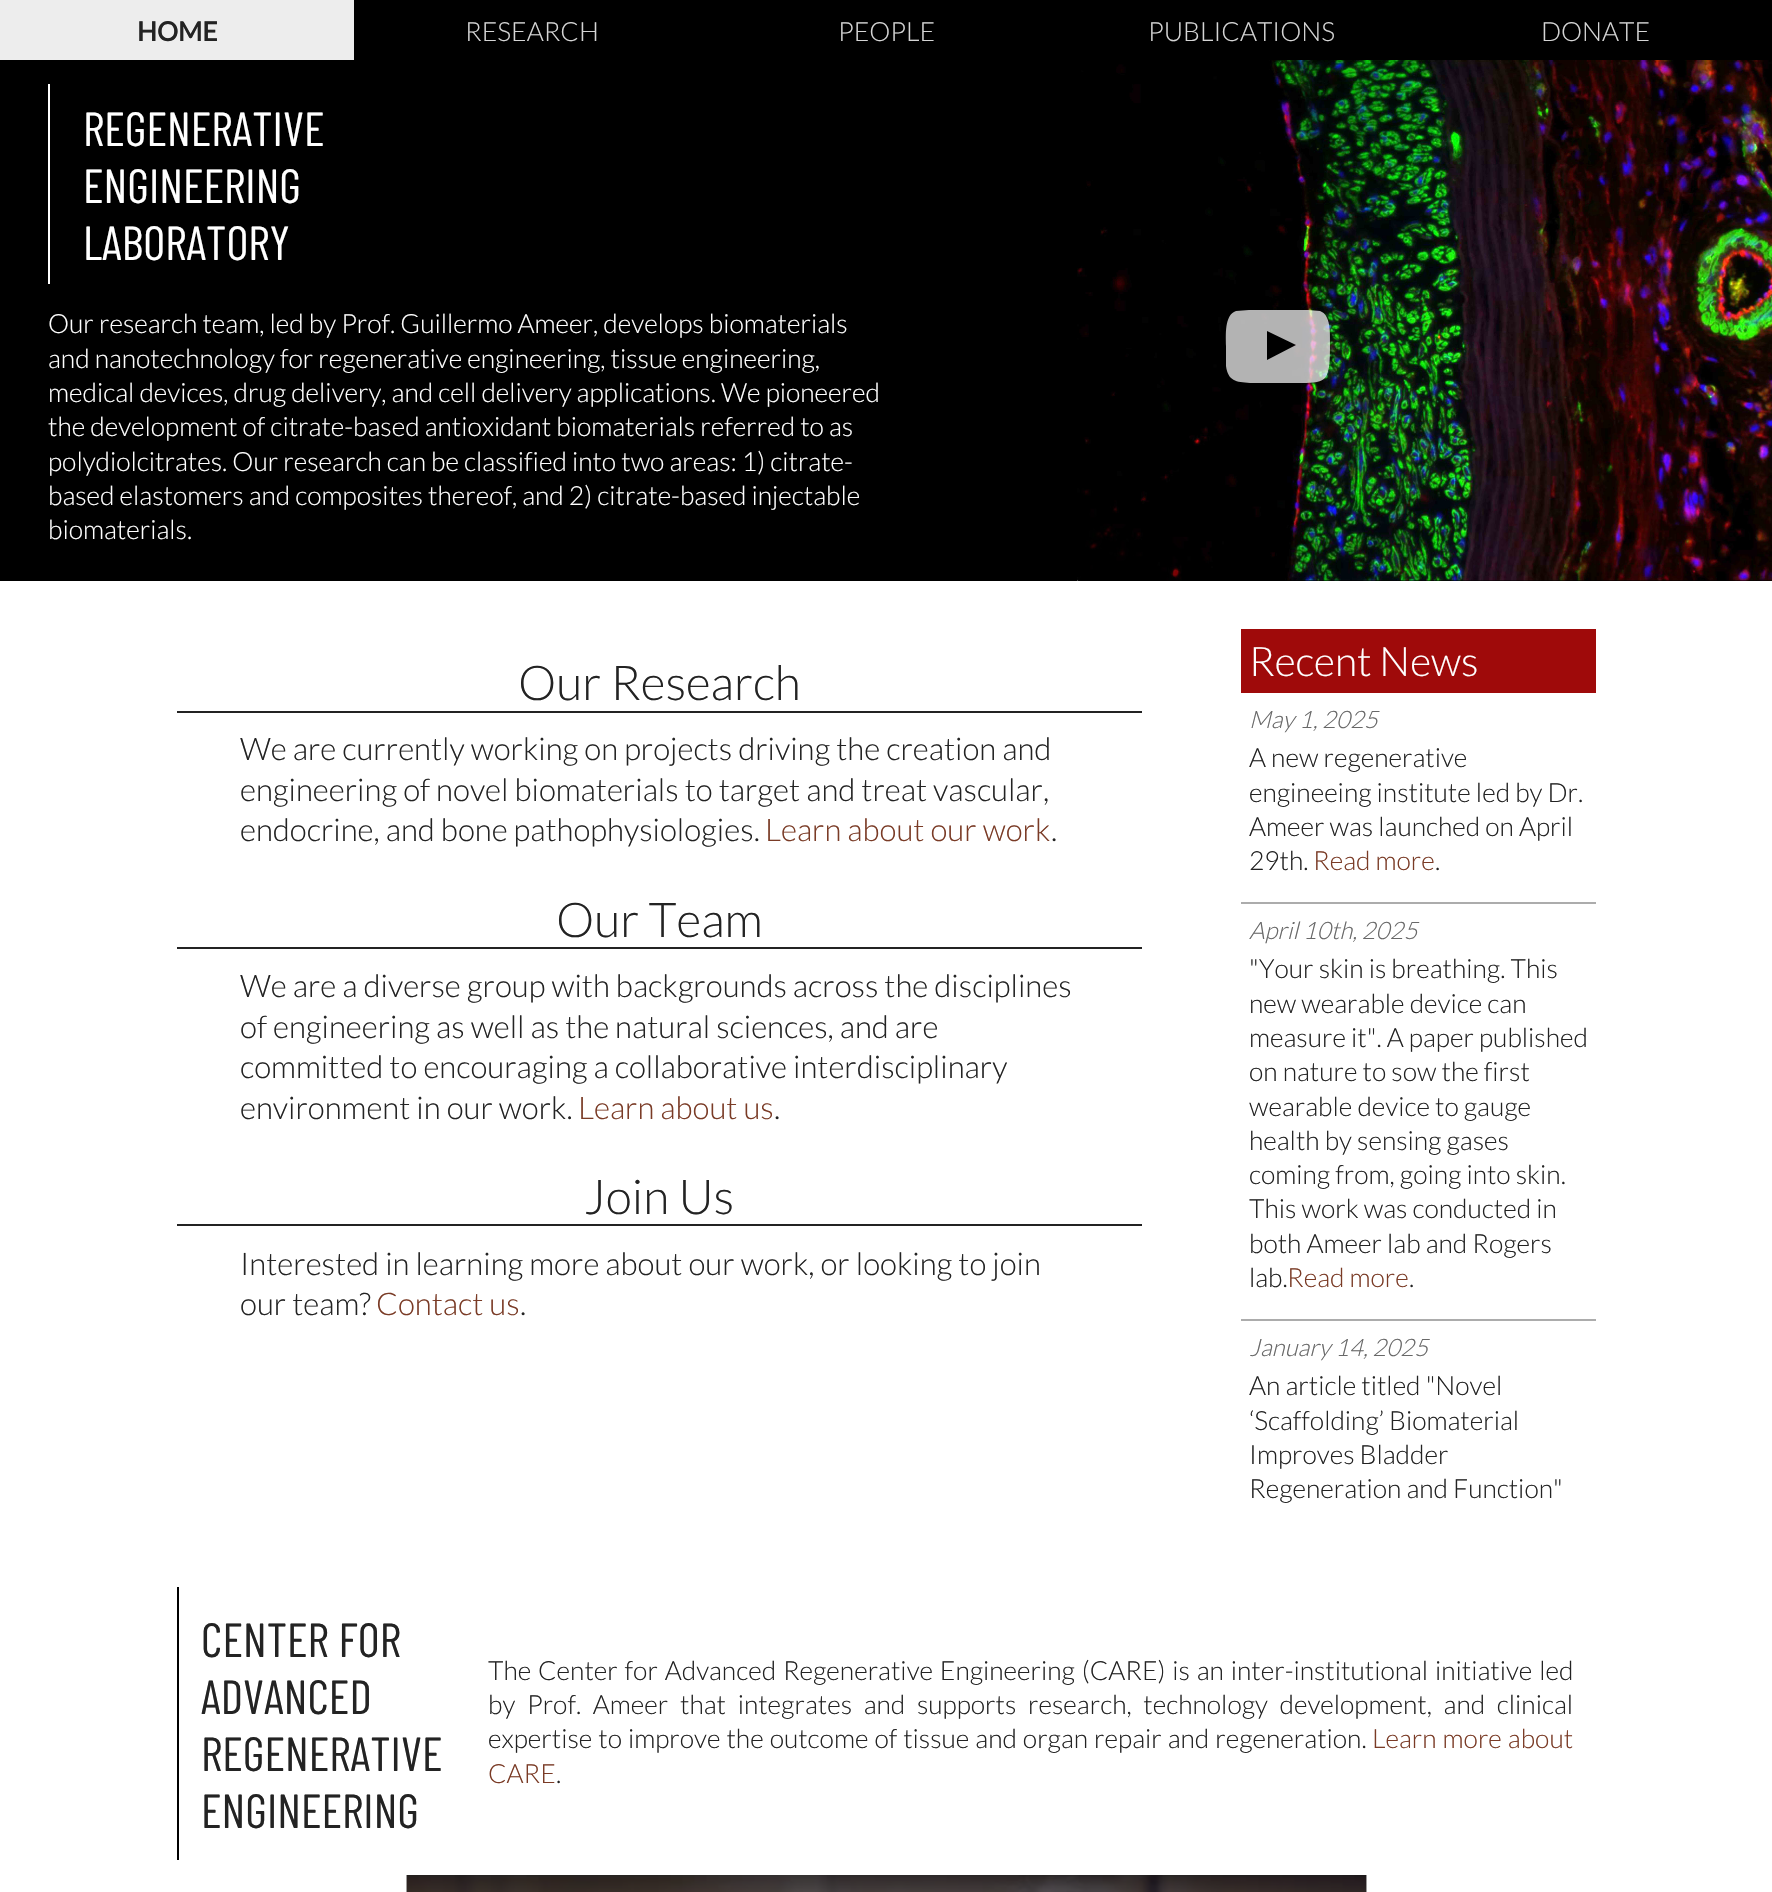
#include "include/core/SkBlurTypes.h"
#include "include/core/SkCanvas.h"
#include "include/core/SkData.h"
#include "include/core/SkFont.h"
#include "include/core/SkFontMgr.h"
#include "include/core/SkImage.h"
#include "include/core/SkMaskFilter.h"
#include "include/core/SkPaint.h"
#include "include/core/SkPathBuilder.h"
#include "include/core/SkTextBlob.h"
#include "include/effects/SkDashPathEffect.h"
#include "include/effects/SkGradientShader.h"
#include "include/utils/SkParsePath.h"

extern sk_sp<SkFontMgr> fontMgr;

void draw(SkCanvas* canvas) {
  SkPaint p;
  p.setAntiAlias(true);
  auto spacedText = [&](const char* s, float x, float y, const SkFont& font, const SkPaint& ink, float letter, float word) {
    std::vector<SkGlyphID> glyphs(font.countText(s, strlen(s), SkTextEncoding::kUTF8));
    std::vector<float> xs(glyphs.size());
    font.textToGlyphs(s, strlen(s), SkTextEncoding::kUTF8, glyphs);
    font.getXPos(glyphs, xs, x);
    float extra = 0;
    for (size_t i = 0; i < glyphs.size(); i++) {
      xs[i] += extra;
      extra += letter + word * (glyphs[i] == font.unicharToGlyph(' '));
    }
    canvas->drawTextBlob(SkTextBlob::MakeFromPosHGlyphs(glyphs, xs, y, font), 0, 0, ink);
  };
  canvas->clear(SK_ColorWHITE);
  p.setColor(SK_ColorBLACK);
  canvas->drawRect(SkRect::MakeLTRB(354, 0, 1772, 60), p);
  p.setColor(SkColorSetRGB(237, 237, 237));
  canvas->drawRect(SkRect::MakeLTRB(0, 0, 354, 60), p);
  p.setColor(SK_ColorBLACK);
  canvas->drawRect(SkRect::MakeLTRB(0, 60, 1772, 581), p);
  canvas->drawImageRect(SkImages::DeferredFromEncodedData(SkData::MakeFromFileName("images/1.png")), SkRect::MakeLTRB(1077, 60, 1772, 581), SkSamplingOptions());
  p.setColor(SK_ColorWHITE);
  canvas->drawRect(SkRect::MakeLTRB(48, 84, 50, 284), p);
  p.setColor(SkColorSetARGB(179, 255, 255, 255));
  canvas->drawPath(SkPathBuilder().moveTo(1267, 360).lineTo(1296, 345).lineTo(1267, 331).close().moveTo(1278, 310).lineTo(1308, 310).lineTo(1320, 311).cubicTo(1331, 315, 1330, 333, 1330, 343).cubicTo(1330, 386, 1327, 383, 1289, 383).lineTo(1250, 383).cubicTo(1236, 382, 1228, 381, 1226, 366).lineTo(1226, 346).cubicTo(1226, 336, 1224, 315, 1236, 311).lineTo(1249, 310).close().detach(), p);
  canvas->drawImageRect(SkImages::DeferredFromEncodedData(SkData::MakeFromFileName("images/2.png")), SkRect::MakeLTRB(1077, 489, 1210, 581), SkSamplingOptions());
  p.setColor(SkColorSetRGB(35, 35, 35));
  canvas->drawRect(SkRect::MakeLTRB(177, 711, 1142, 713), p);
  canvas->drawRect(SkRect::MakeLTRB(177, 947, 1142, 949), p);
  canvas->drawRect(SkRect::MakeLTRB(177, 1224, 1142, 1226), p);
  p.setColor(SkColorSetRGB(159, 10, 10));
  canvas->drawRect(SkRect::MakeLTRB(1241, 629, 1596, 693), p);
  p.setColor(SkColorSetRGB(172, 172, 172));
  canvas->drawRect(SkRect::MakeLTRB(1241, 902, 1596, 904), p);
  canvas->drawRect(SkRect::MakeLTRB(1241, 1319, 1596, 1321), p);
  p.setColor(SK_ColorBLACK);
  canvas->drawRect(SkRect::MakeLTRB(177, 1587, 179, 1860), p);
  canvas->drawImageRect(SkImages::DeferredFromEncodedData(SkData::MakeFromFileName("images/3.png")), SkRect::MakeLTRB(406, 1875, 1367, 1892), SkSamplingOptions());
  SkFont font1(fontMgr->matchFamilyStyle("Lato", SkFontStyle::Bold()), 26.4f);
  font1.setSubpixel(true);
  p.setColor(SkColorSetRGB(35, 35, 35));
  canvas->drawString("HOME", 137, 41, font1, p);
  SkFont font2(fontMgr->matchFamilyStyle("Lato", SkFontStyle(300, SkFontStyle::kNormal_Width, SkFontStyle::kUpright_Slant)), 26.4f);
  font2.setSubpixel(true);
  p.setColor(SkColorSetRGB(213, 213, 213));
  canvas->drawString("RESEARCH", 465, 41, font2, p);
  canvas->drawString("PEOPLE", 838, 41, font2, p);
  canvas->drawString("PUBLICATIONS", 1148, 41, font2, p);
  canvas->drawString("DONATE", 1541, 41, font2, p);
  SkFont font3(fontMgr->matchFamilyStyle("Barlow Condensed", SkFontStyle::Normal()), 48);
  font3.setSubpixel(true);
  p.setColor(SK_ColorWHITE);
  canvas->drawString("REGENERATIVE", 83, 146, font3, p);
  canvas->drawString("ENGINEERING", 83, 203, font3, p);
  canvas->drawString("LABORATORY", 83, 260, font3, p);
  canvas->drawString("Our research team, led by Prof. Guillermo Ameer, develops biomaterials", 48, 333, font2, p);
  canvas->drawString("and nanotechnology for regenerative engineering, tissue engineering,", 48, 368, font2, p);
  canvas->drawString("medical devices, drug delivery, and cell delivery applications. We pioneered", 48, 402, font2, p);
  canvas->drawString("the development of citrate-based antioxidant biomaterials referred to as", 48, 436, font2, p);
  canvas->drawString("polydiolcitrates. Our research can be classified into two areas: 1) citrate-", 48, 471, font2, p);
  canvas->drawString("based elastomers and composites thereof, and 2) citrate-based injectable", 48, 505, font2, p);
  canvas->drawString("biomaterials.", 48, 539, font2, p);
  SkFont font4(fontMgr->matchFamilyStyle("Lato", SkFontStyle(300, SkFontStyle::kNormal_Width, SkFontStyle::kUpright_Slant)), 48);
  font4.setSubpixel(true);
  p.setColor(SkColorSetRGB(35, 35, 35));
  canvas->drawString("Our Research", 518, 700, font4, p);
  SkFont font5(fontMgr->matchFamilyStyle("Lato", SkFontStyle(300, SkFontStyle::kNormal_Width, SkFontStyle::kUpright_Slant)), 31.2f);
  font5.setSubpixel(true);
  canvas->drawString("We are currently working on projects driving the creation and", 240, 760, font5, p);
  canvas->drawString("engineering of novel biomaterials to target and treat vascular,", 240, 801, font5, p);
  canvas->drawString("endocrine, and bone pathophysiologies.", 240, 841, font5, p);
  p.setColor(SkColorSetRGB(122, 59, 38));
  canvas->drawString("Learn about our work", 765, 841, font5, p);
  p.setColor(SkColorSetRGB(35, 35, 35));
  canvas->drawString(".", 1051, 841, font5, p);
  canvas->drawString("Our Team", 556, 937, font4, p);
  canvas->drawString("We are a diverse group with backgrounds across the disciplines", 240, 997, font5, p);
  canvas->drawString("of engineering as well as the natural sciences, and are", 240, 1038, font5, p);
  canvas->drawString("committed to encouraging a collaborative interdisciplinary", 240, 1078, font5, p);
  canvas->drawString("environment in our work.", 240, 1119, font5, p);
  p.setColor(SkColorSetRGB(122, 59, 38));
  canvas->drawString("Learn about us", 578, 1119, font5, p);
  p.setColor(SkColorSetRGB(35, 35, 35));
  canvas->drawString(".", 774, 1119, font5, p);
  canvas->drawString("Join Us", 584, 1214, font4, p);
  canvas->drawString("Interested in learning more about our work, or looking to join", 240, 1275, font5, p);
  canvas->drawString("our team?", 240, 1315, font5, p);
  p.setColor(SkColorSetRGB(122, 59, 38));
  canvas->drawString("Contact us", 376, 1315, font5, p);
  p.setColor(SkColorSetRGB(35, 35, 35));
  canvas->drawString(".", 520, 1315, font5, p);
  SkFont font6(fontMgr->matchFamilyStyle("Lato", SkFontStyle(300, SkFontStyle::kNormal_Width, SkFontStyle::kUpright_Slant)), 40.75f);
  font6.setSubpixel(true);
  p.setColor(SK_ColorWHITE);
  canvas->drawString("Recent News", 1249, 676, font6, p);
  SkFont font7(fontMgr->matchFamilyStyle("Lato", SkFontStyle(300, SkFontStyle::kNormal_Width, SkFontStyle::kItalic_Slant)), 24);
  font7.setSubpixel(true);
  p.setColor(SkColorSetRGB(104, 104, 104));
  canvas->drawString("May 1, 2025", 1249, 728, font7, p);
  p.setColor(SkColorSetRGB(35, 35, 35));
  canvas->drawString("A new regenerative", 1249, 767, font2, p);
  canvas->drawString("engineeing institute led by Dr.", 1249, 802, font2, p);
  canvas->drawString("Ameer was launched on April", 1249, 836, font2, p);
  canvas->drawString("29th.", 1249, 870, font2, p);
  p.setColor(SkColorSetRGB(122, 59, 38));
  canvas->drawString("Read more", 1313, 870, font2, p);
  p.setColor(SkColorSetRGB(35, 35, 35));
  canvas->drawString(".", 1435, 870, font2, p);
  p.setColor(SkColorSetRGB(104, 104, 104));
  canvas->drawString("April 10th, 2025", 1249, 939, font7, p);
  p.setColor(SkColorSetRGB(35, 35, 35));
  canvas->drawString("\"Your skin is breathing. This", 1249, 978, font2, p);
  canvas->drawString("new wearable device can", 1249, 1013, font2, p);
  canvas->drawString("measure it\". A paper published", 1249, 1047, font2, p);
  canvas->drawString("on nature to sow the first", 1249, 1081, font2, p);
  canvas->drawString("wearable device to gauge", 1249, 1116, font2, p);
  canvas->drawString("health by sensing gases", 1249, 1150, font2, p);
  canvas->drawString("coming from, going into skin.", 1249, 1184, font2, p);
  canvas->drawString("This work was conducted in", 1249, 1218, font2, p);
  canvas->drawString("both Ameer lab and Rogers", 1249, 1253, font2, p);
  canvas->drawString("lab.", 1249, 1287, font2, p);
  p.setColor(SkColorSetRGB(122, 59, 38));
  canvas->drawString("Read more", 1287, 1287, font2, p);
  p.setColor(SkColorSetRGB(35, 35, 35));
  canvas->drawString(".", 1409, 1287, font2, p);
  p.setColor(SkColorSetRGB(104, 104, 104));
  canvas->drawString("January 14, 2025", 1249, 1356, font7, p);
  p.setColor(SkColorSetRGB(35, 35, 35));
  canvas->drawString("An article titled \"Novel", 1249, 1395, font2, p);
  canvas->drawString("‘Scaffolding’ Biomaterial", 1249, 1430, font2, p);
  canvas->drawString("Improves Bladder", 1249, 1464, font2, p);
  canvas->drawString("Regeneration and Function\"", 1249, 1498, font2, p);
  canvas->drawString("CENTER FOR", 201, 1657, font3, p);
  canvas->drawString("ADVANCED", 201, 1714, font3, p);
  canvas->drawString("REGENERATIVE", 201, 1771, font3, p);
  canvas->drawString("ENGINEERING", 201, 1828, font3, p);
  spacedText("The Center for Advanced Regenerative Engineering (CARE) is an inter-institutional initiative led", 488, 1680, font2, p, 0, 1.75f);
  spacedText("by Prof. Ameer that integrates and supports research, technology development, and clinical", 488, 1714, font2, p, 0, 6.6f);
  spacedText("expertise to improve the outcome of tissue and organ repair and regeneration.", 488, 1748, font2, p, 0, 0.9f);
  p.setColor(SkColorSetRGB(122, 59, 38));
  spacedText("Learn more about", 1372, 1748, font2, p, 0, 0.9f);
  canvas->drawString("CARE", 488, 1783, font2, p);
  p.setColor(SkColorSetRGB(35, 35, 35));
  canvas->drawString(".", 556, 1783, font2, p);
}
